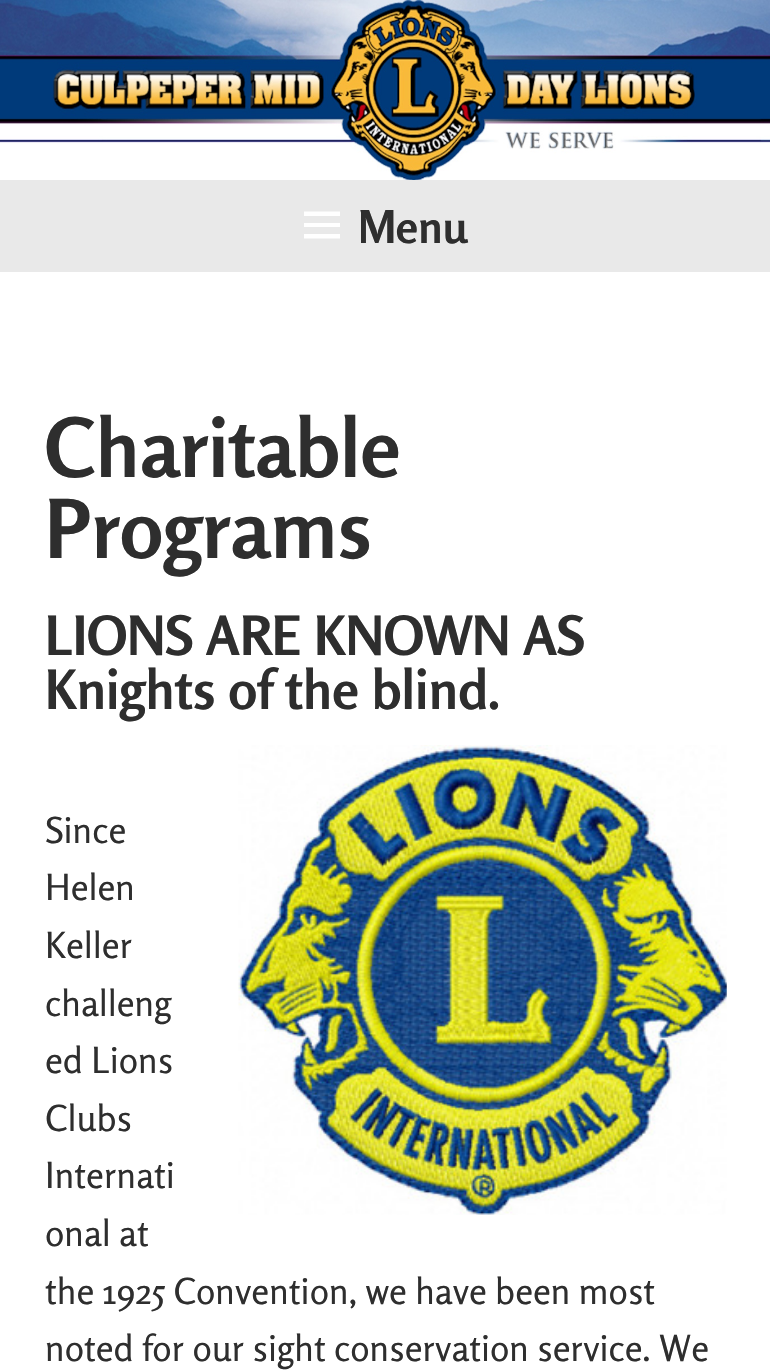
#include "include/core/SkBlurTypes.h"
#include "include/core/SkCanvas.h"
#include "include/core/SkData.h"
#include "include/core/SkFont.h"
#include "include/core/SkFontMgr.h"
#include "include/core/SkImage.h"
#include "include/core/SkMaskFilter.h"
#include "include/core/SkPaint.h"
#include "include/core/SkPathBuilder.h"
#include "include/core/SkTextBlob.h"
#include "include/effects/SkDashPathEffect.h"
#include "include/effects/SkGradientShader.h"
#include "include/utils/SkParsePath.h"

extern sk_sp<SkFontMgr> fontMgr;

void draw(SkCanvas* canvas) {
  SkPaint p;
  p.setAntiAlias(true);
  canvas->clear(SK_ColorWHITE);
  canvas->drawImageRect(SkImages::DeferredFromEncodedData(SkData::MakeFromFileName("images/1.png")), SkRect::MakeLTRB(0, 0, 770, 180), SkSamplingOptions());
  p.setColor(SkColorSetRGB(233, 233, 233));
  canvas->drawRect(SkRect::MakeLTRB(0, 180, 770, 272), p);
  p.setColor(SK_ColorWHITE);
  canvas->drawPath(SkPathBuilder().moveTo(304, 238.5f).lineTo(304, 234).lineTo(340, 234).lineTo(340, 238.5f).close().moveTo(304, 211.5f).lineTo(340, 211.5f).lineTo(340, 216).lineTo(304, 216).close().moveTo(304, 227).lineTo(304, 223).lineTo(340, 223).lineTo(340, 227).close().detach(), p);
  canvas->drawImageRect(SkImages::DeferredFromEncodedData(SkData::MakeFromFileName("images/2.png")), SkRect::MakeLTRB(238, 745, 727, 1215), SkSamplingOptions());
  SkFont font1(fontMgr->matchFamilyStyle("Rosario", SkFontStyle::Bold()), 45);
  font1.setSubpixel(true);
  p.setColor(SkColorSetRGB(46, 46, 46));
  canvas->drawString("Menu", 358, 243, font1, p);
  SkFont font2(fontMgr->matchFamilyStyle("Rosario", SkFontStyle::Bold()), 81);
  font2.setSubpixel(true);
  canvas->drawString("Charitable", 45, 477, font2, p);
  canvas->drawString("Programs", 45, 558, font2, p);
  SkFont font3(fontMgr->matchFamilyStyle("Rosario", SkFontStyle::Bold()), 54);
  font3.setSubpixel(true);
  canvas->drawString("LIONS ARE KNOWN AS", 45, 655, font3, p);
  canvas->drawString("Knights of the blind.", 45, 709, font3, p);
  SkFont font4(fontMgr->matchFamilyStyle("Rosario", SkFontStyle::Normal()), 36);
  font4.setSubpixel(true);
  canvas->drawString("Since", 45, 843, font4, p);
  canvas->drawString("Helen", 45, 900, font4, p);
  canvas->drawString("Keller", 45, 958, font4, p);
  canvas->drawString("challeng", 45, 1016, font4, p);
  canvas->drawString("ed Lions", 45, 1073, font4, p);
  canvas->drawString("Clubs", 45, 1131, font4, p);
  canvas->drawString("Internati", 45, 1188, font4, p);
  canvas->drawString("onal at", 45, 1246, font4, p);
  canvas->drawString("the 1925 Convention, we have been most", 45, 1304, font4, p);
  canvas->drawString("noted for our sight conservation service. We", 45, 1361, font4, p);
}
